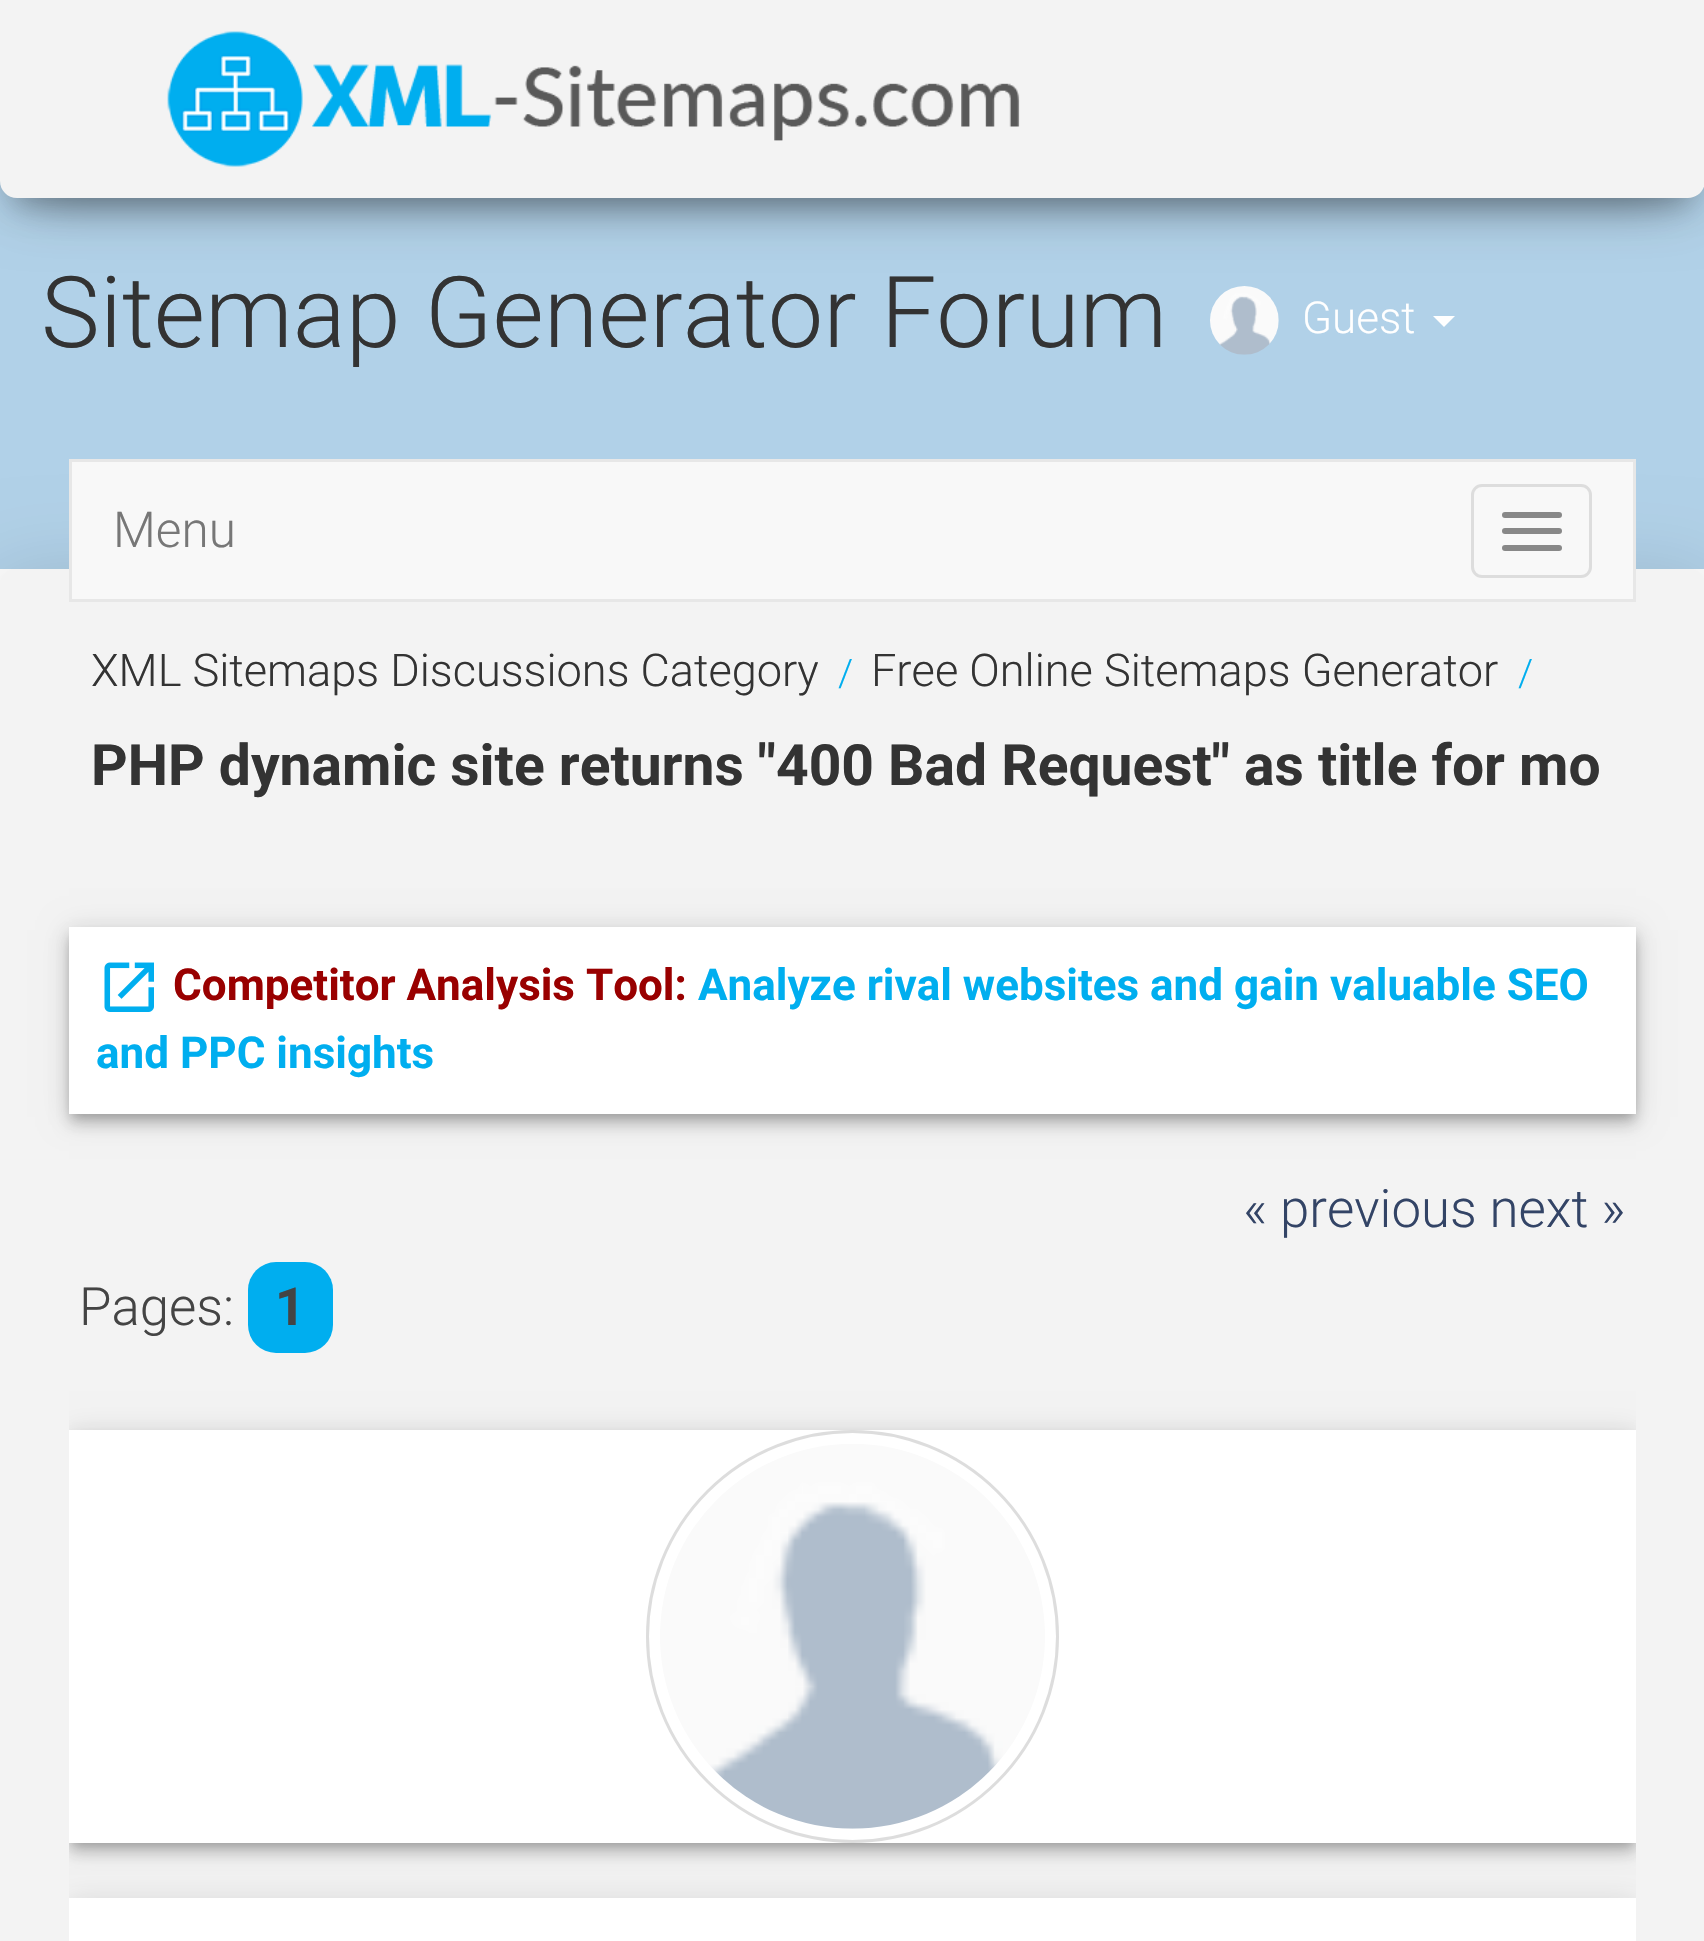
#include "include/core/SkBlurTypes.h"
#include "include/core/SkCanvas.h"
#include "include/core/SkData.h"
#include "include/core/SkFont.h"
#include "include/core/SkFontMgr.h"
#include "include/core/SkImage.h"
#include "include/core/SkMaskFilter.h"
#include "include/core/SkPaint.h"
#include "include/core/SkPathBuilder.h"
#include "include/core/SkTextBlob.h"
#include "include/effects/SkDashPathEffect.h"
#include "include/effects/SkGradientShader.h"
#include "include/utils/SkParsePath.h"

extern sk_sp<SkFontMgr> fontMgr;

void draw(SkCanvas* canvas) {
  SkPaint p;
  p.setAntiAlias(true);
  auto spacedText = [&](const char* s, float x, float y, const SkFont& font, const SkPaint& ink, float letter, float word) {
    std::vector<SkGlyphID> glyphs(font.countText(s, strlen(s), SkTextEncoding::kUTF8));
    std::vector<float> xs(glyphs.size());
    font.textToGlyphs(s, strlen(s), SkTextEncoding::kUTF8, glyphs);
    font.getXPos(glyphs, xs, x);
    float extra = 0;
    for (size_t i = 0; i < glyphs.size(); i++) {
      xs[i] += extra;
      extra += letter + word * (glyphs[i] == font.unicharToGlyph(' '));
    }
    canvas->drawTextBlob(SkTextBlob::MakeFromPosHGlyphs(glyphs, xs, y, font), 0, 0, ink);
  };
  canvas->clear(SK_ColorWHITE);
  p.setColor(SkColorSetRGB(177, 209, 232));
  canvas->drawRect(SkRect::MakeLTRB(0, 181, 1704, 569), p);
  p.setColor(SkColorSetARGB(51, 0, 0, 0));
  p.setMaskFilter(SkMaskFilter::MakeBlur(kNormal_SkBlurStyle, 14));
  canvas->drawRoundRect(SkRect::MakeLTRB(14, 36, 1691, 206), 3, 3, p);
  p.setMaskFilter(nullptr);
  canvas->drawImageRect(SkImages::DeferredFromEncodedData(SkData::MakeFromFileName("images/2.png")), SkRect::MakeLTRB(1210, 286, 1279, 355), SkSamplingOptions());
  p.setColor(SkColorSetARGB(31, 0, 0, 0));
  p.setMaskFilter(SkMaskFilter::MakeBlur(kNormal_SkBlurStyle, 27.5f));
  canvas->drawRoundRect(SkRect::MakeLTRB(0, 8, 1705, 206), 17, 17, p);
  p.setMaskFilter(nullptr);
  p.setColor(SkColorSetARGB(107, 0, 0, 0));
  p.setMaskFilter(SkMaskFilter::MakeBlur(kNormal_SkBlurStyle, 27.5f));
  canvas->drawRect(SkRect::MakeLTRB(33, 61, 1672, 193), p);
  p.setMaskFilter(nullptr);
  p.setColor(SkColorSetRGB(243, 243, 243));
  canvas->drawPath(SkPathBuilder().moveTo(0, 0).lineTo(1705, 0).lineTo(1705, 181).cubicTo(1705, 190.5f, 1697.5f, 198, 1688, 198).lineTo(17, 198).cubicTo(7.5f, 198, 0, 190.5f, 0, 181).close().detach(), p);
  canvas->drawImageRect(SkImages::DeferredFromEncodedData(SkData::MakeFromFileName("images/1.png")), SkRect::MakeLTRB(167, 31, 1020, 167), SkSamplingOptions());
  p.setColor(SK_ColorWHITE);
  canvas->drawPath(SkPathBuilder().moveTo(1433, 316).lineTo(1455, 316).lineTo(1444, 327).close().detach(), p);
  p.setColor(SkColorSetARGB(31, 0, 0, 0));
  p.setMaskFilter(SkMaskFilter::MakeBlur(kNormal_SkBlurStyle, 41));
  canvas->drawRoundRect(SkRect::MakeLTRB(-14, 572, 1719, 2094), 30, 30, p);
  p.setMaskFilter(nullptr);
  p.setColor(SkColorSetRGB(243, 243, 243));
  canvas->drawRoundRect(SkRect::MakeLTRB(0, 569, 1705, 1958), 17, 17, p);
  p.setColor(SkColorSetRGB(248, 248, 248));
  canvas->drawRect(SkRect::MakeLTRB(70.5f, 460.5f, 1634.5f, 600.5f), p);
  p.setStyle(SkPaint::kStroke_Style);
  p.setStrokeWidth(3);
  p.setColor(SkColorSetRGB(231, 231, 231));
  canvas->drawRect(SkRect::MakeLTRB(70.5f, 460.5f, 1634.5f, 600.5f), p);
  p.setColor(SkColorSetRGB(221, 221, 221));
  canvas->drawRoundRect(SkRect::MakeLTRB(1472.5f, 485.5f, 1590.5f, 576.5f), 9.5f, 9.5f, p);
  p.setStyle(SkPaint::kFill_Style);
  p.setColor(SkColorSetRGB(136, 136, 136));
  canvas->drawRoundRect(SkRect::MakeLTRB(1502, 512, 1562, 518), 3, 3, p);
  canvas->drawRoundRect(SkRect::MakeLTRB(1502, 528, 1562, 534), 3, 3, p);
  canvas->drawRoundRect(SkRect::MakeLTRB(1502, 545, 1562, 551), 3, 3, p);
  p.setColor(SkColorSetARGB(51, 0, 0, 0));
  p.setMaskFilter(SkMaskFilter::MakeBlur(kNormal_SkBlurStyle, 5.5f));
  canvas->drawRect(SkRect::MakeLTRB(72, 935, 1634, 1117), p);
  p.setMaskFilter(nullptr);
  p.setColor(SkColorSetARGB(31, 0, 0, 0));
  p.setMaskFilter(SkMaskFilter::MakeBlur(kNormal_SkBlurStyle, 14));
  canvas->drawRect(SkRect::MakeLTRB(69, 930, 1636, 1117), p);
  p.setMaskFilter(nullptr);
  p.setColor(SkColorSetARGB(36, 0, 0, 0));
  p.setMaskFilter(SkMaskFilter::MakeBlur(kNormal_SkBlurStyle, 7));
  canvas->drawRect(SkRect::MakeLTRB(69, 938, 1636, 1125), p);
  p.setMaskFilter(nullptr);
  p.setColor(SK_ColorWHITE);
  canvas->drawRect(SkRect::MakeLTRB(69, 927, 1636, 1114), p);
  canvas->drawImageRect(SkImages::DeferredFromEncodedData(SkData::MakeFromFileName("images/3.png")), SkRect::MakeLTRB(104, 962, 154, 1012), SkSamplingOptions());
  p.setColor(SkColorSetRGB(0, 174, 239));
  canvas->drawRoundRect(SkRect::MakeLTRB(248, 1262, 333, 1353), 28, 28, p);
  canvas->save();
  canvas->clipRect(SkRect::MakeLTRB(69, 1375, 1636, 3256));
  p.setColor(SkColorSetARGB(51, 0, 0, 0));
  p.setMaskFilter(SkMaskFilter::MakeBlur(kNormal_SkBlurStyle, 5.5f));
  canvas->drawRect(SkRect::MakeLTRB(72, 1438, 1634, 1845), p);
  p.setMaskFilter(nullptr);
  p.setColor(SkColorSetARGB(31, 0, 0, 0));
  p.setMaskFilter(SkMaskFilter::MakeBlur(kNormal_SkBlurStyle, 14));
  canvas->drawRect(SkRect::MakeLTRB(69, 1433, 1636, 1845), p);
  p.setMaskFilter(nullptr);
  p.setColor(SkColorSetARGB(36, 0, 0, 0));
  p.setMaskFilter(SkMaskFilter::MakeBlur(kNormal_SkBlurStyle, 7));
  canvas->drawRect(SkRect::MakeLTRB(69, 1441, 1636, 1854), p);
  p.setMaskFilter(nullptr);
  canvas->restore();
  p.setColor(SK_ColorWHITE);
  canvas->drawRect(SkRect::MakeLTRB(69, 1430, 1636, 1843), p);
  p.setStyle(SkPaint::kStroke_Style);
  p.setColor(SkColorSetRGB(221, 221, 221));
  canvas->drawCircle(852.5f, 1636.5f, 205, p);
  canvas->drawImageRect(SkImages::DeferredFromEncodedData(SkData::MakeFromFileName("images/4.png")), SkRect::MakeLTRB(660, 1444, 1045, 1829), SkSamplingOptions());
  canvas->save();
  canvas->clipRect(SkRect::MakeLTRB(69, 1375, 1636, 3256));
  p.setStyle(SkPaint::kFill_Style);
  p.setColor(SkColorSetARGB(31, 0, 0, 0));
  p.setMaskFilter(SkMaskFilter::MakeBlur(kNormal_SkBlurStyle, 14));
  canvas->drawRect(SkRect::MakeLTRB(69, 1900, 1636, 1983), p);
  p.setMaskFilter(nullptr);
  canvas->restore();
  p.setColor(SK_ColorWHITE);
  canvas->drawRect(SkRect::MakeLTRB(69, 1898, 1636, 1941), p);
  SkFont font1(fontMgr->matchFamilyStyle("Roboto", SkFontStyle(300, SkFontStyle::kNormal_Width, SkFontStyle::kUpright_Slant)), 99);
  font1.setSubpixel(true);
  p.setColor(SkColorSetRGB(51, 51, 51));
  canvas->drawString("Sitemap Generator Forum", 41, 347, font1, p);
  SkFont font2(fontMgr->matchFamilyStyle("Roboto", SkFontStyle(300, SkFontStyle::kNormal_Width, SkFontStyle::kUpright_Slant)), 44);
  font2.setSubpixel(true);
  p.setColor(SK_ColorWHITE);
  canvas->drawString("Guest", 1302, 333, font2, p);
  SkFont font3(fontMgr->matchFamilyStyle("Roboto", SkFontStyle(300, SkFontStyle::kNormal_Width, SkFontStyle::kUpright_Slant)), 49.5f);
  font3.setSubpixel(true);
  p.setColor(SkColorSetRGB(119, 119, 119));
  canvas->drawString("Menu", 113, 547, font3, p);
  SkFont font4(fontMgr->matchFamilyStyle("Roboto", SkFontStyle(300, SkFontStyle::kNormal_Width, SkFontStyle::kUpright_Slant)), 45.1f);
  font4.setSubpixel(true);
  p.setColor(SkColorSetRGB(51, 51, 51));
  canvas->drawString("XML Sitemaps Discussions Category", 91, 686, font4, p);
  SkFont font5(fontMgr->matchFamilyStyle("Roboto", SkFontStyle(300, SkFontStyle::kNormal_Width, SkFontStyle::kUpright_Slant)), 38);
  font5.setSubpixel(true);
  p.setColor(SkColorSetRGB(0, 174, 239));
  canvas->drawString("/", 838, 686, font5, p);
  p.setColor(SkColorSetRGB(51, 51, 51));
  canvas->drawString("Free Online Sitemaps Generator", 871, 686, font4, p);
  p.setColor(SkColorSetRGB(0, 174, 239));
  canvas->drawString("/", 1518, 686, font5, p);
  SkFont font6(fontMgr->matchFamilyStyle("Roboto", SkFontStyle::Bold()), 57);
  font6.setSubpixel(true);
  p.setColor(SkColorSetRGB(51, 51, 51));
  spacedText("PHP dynamic site returns \"400 Bad Request\" as title for mo", 91, 785, font6, p, 0, -0.1f);
  SkFont font7(fontMgr->matchFamilyStyle("Roboto", SkFontStyle::Bold()), 44);
  font7.setSubpixel(true);
  p.setColor(SkColorSetRGB(153, 0, 0));
  canvas->drawString("Competitor Analysis Tool:", 173, 1000, font7, p);
  p.setColor(SkColorSetRGB(0, 174, 239));
  canvas->drawString("Analyze rival websites and gain valuable SEO", 698, 1000, font7, p);
  canvas->drawString("and PPC insights", 96, 1068, font7, p);
  SkFont font8(fontMgr->matchFamilyStyle("Roboto", SkFontStyle(300, SkFontStyle::kNormal_Width, SkFontStyle::kUpright_Slant)), 52.75f);
  font8.setSubpixel(true);
  p.setColor(SkColorSetRGB(51, 68, 102));
  canvas->drawString("« previous next »", 1243, 1227, font8, p);
  p.setColor(SkColorSetRGB(68, 68, 68));
  canvas->drawString("Pages:", 79, 1325, font8, p);
  SkFont font9(fontMgr->matchFamilyStyle("Roboto", SkFontStyle::Bold()), 52.75f);
  font9.setSubpixel(true);
  canvas->drawString("1", 275, 1325, font9, p);
}
